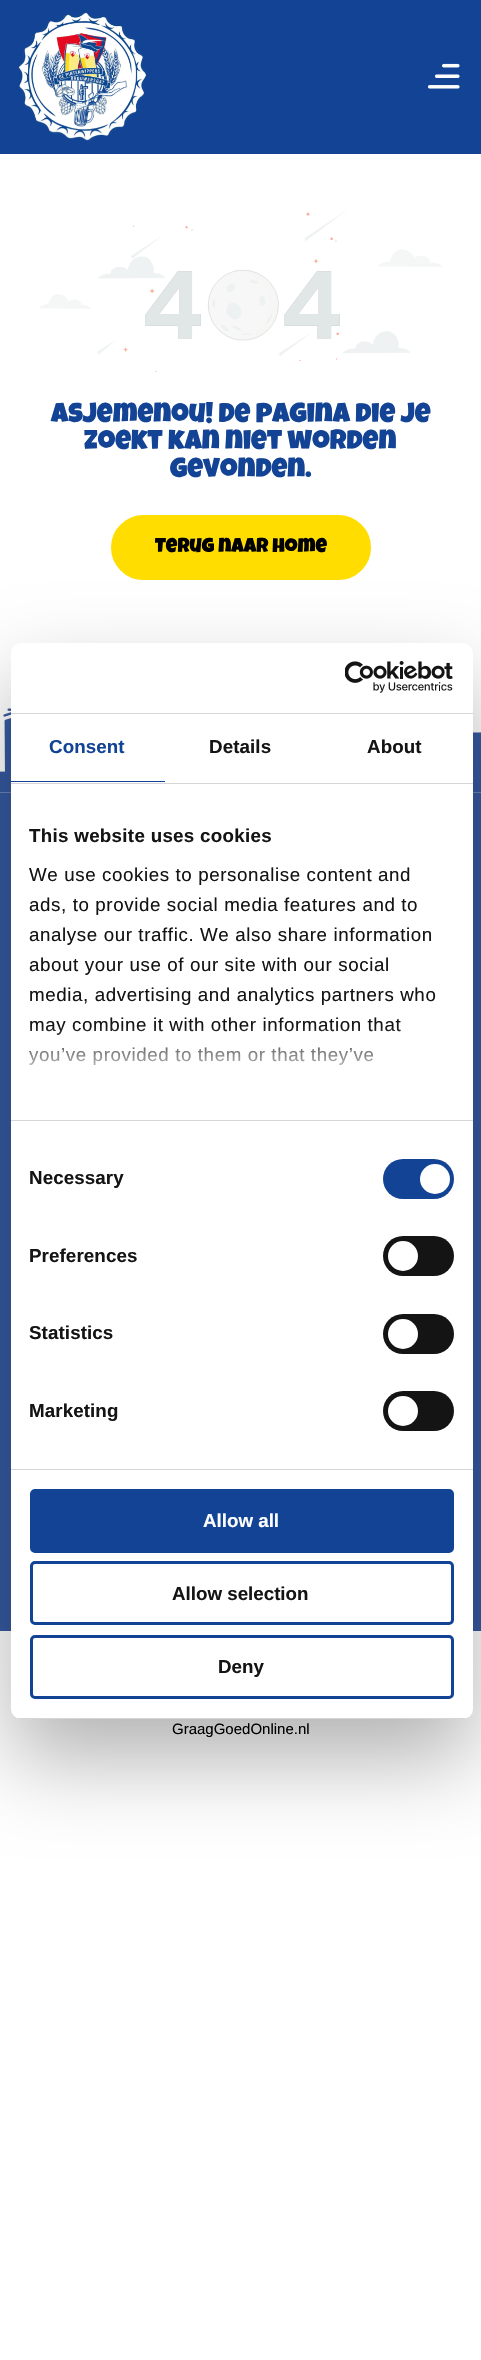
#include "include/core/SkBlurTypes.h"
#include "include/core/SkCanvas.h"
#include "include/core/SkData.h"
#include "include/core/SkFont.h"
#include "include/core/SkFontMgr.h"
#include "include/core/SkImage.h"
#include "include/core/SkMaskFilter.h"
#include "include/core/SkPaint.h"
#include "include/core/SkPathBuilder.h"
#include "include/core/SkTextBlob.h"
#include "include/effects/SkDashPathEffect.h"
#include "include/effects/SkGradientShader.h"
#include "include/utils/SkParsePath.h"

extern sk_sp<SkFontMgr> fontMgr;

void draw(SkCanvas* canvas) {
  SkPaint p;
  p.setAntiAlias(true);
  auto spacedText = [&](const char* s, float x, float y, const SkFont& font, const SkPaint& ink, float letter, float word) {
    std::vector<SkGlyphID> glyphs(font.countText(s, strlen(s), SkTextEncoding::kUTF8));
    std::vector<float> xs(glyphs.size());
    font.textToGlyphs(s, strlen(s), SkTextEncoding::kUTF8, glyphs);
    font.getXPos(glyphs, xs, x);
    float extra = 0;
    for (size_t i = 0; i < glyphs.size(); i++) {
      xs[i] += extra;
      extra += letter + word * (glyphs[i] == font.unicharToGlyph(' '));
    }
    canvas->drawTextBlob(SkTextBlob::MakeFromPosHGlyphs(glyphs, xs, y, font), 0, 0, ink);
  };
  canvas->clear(SK_ColorWHITE);
  p.setColor(SkColorSetRGB(19, 67, 149));
  canvas->drawRect(SkRect::MakeLTRB(0, 0, 481, 154), p);
  canvas->drawImageRect(SkImages::DeferredFromEncodedData(SkData::MakeFromFileName("images/1.png")), SkRect::MakeLTRB(18, 12, 146, 141), SkSamplingOptions());
  canvas->drawImageRect(SkImages::DeferredFromEncodedData(SkData::MakeFromFileName("images/2.png")), SkRect::MakeLTRB(427, 63, 460, 89), SkSamplingOptions());
  canvas->drawImageRect(SkImages::DeferredFromEncodedData(SkData::MakeFromFileName("images/3.png")), SkRect::MakeLTRB(39, 209, 442, 372), SkSamplingOptions());
  p.setColor(SkColorSetRGB(255, 221, 0));
  canvas->drawRoundRect(SkRect::MakeLTRB(112.5f, 516.5f, 369.5f, 578.5f), 31, 31, p);
  p.setStyle(SkPaint::kStroke_Style);
  p.setStrokeWidth(3);
  canvas->drawRoundRect(SkRect::MakeLTRB(112.5f, 516.5f, 369.5f, 578.5f), 31, 31, p);
  canvas->drawImageRect(SkImages::DeferredFromEncodedData(SkData::MakeFromFileName("images/4.png")), SkRect::MakeLTRB(0, 708, 481, 793), SkSamplingOptions());
  p.setStyle(SkPaint::kFill_Style);
  p.setColor(SkColorSetRGB(53, 89, 160));
  canvas->drawRect(SkRect::MakeLTRB(0, 793, 481, 1631), p);
  p.setColor(SkColorSetARGB(77, 0, 0, 0));
  p.setMaskFilter(SkMaskFilter::MakeBlur(kNormal_SkBlurStyle, 42.5f));
  canvas->drawRoundRect(SkRect::MakeLTRB(11, 683, 473, 1759), 10, 10, p);
  p.setMaskFilter(nullptr);
  p.setColor(SK_ColorWHITE);
  canvas->drawRoundRect(SkRect::MakeLTRB(11, 643, 473, 1719), 10, 10, p);
  p.setColor(SkColorSetRGB(214, 214, 214));
  canvas->drawRect(SkRect::MakeLTRB(11, 713, 473, 714), p);
  canvas->drawImageRect(SkImages::DeferredFromEncodedData(SkData::MakeFromFileName("images/5.png")), SkRect::MakeLTRB(345, 661, 453, 693), SkSamplingOptions());
  canvas->drawRect(SkRect::MakeLTRB(11, 783, 473, 784), p);
  p.setColor(SkColorSetRGB(19, 67, 149));
  canvas->drawRect(SkRect::MakeLTRB(11, 781, 165, 782), p);
  p.setColor(SkColorSetRGB(214, 214, 214));
  canvas->drawRect(SkRect::MakeLTRB(11, 1120, 473, 1121), p);
  canvas->drawRect(SkRect::MakeLTRB(11, 1469, 473, 1470), p);
  p.setColor(SkColorSetRGB(19, 67, 149));
  canvas->drawRoundRect(SkRect::MakeLTRB(383, 1159, 454, 1199), 20, 20, p);
  p.setColor(SK_ColorWHITE);
  canvas->drawCircle(435, 1179, 15, p);
  p.setColor(SkColorSetRGB(20, 20, 20));
  canvas->drawRoundRect(SkRect::MakeLTRB(383, 1236, 454, 1276), 20, 20, p);
  p.setColor(SK_ColorWHITE);
  canvas->drawCircle(403, 1256, 15, p);
  p.setColor(SkColorSetRGB(20, 20, 20));
  canvas->drawRoundRect(SkRect::MakeLTRB(383, 1314, 454, 1354), 20, 20, p);
  p.setColor(SK_ColorWHITE);
  canvas->drawCircle(403, 1334, 15, p);
  p.setColor(SkColorSetRGB(20, 20, 20));
  canvas->drawRoundRect(SkRect::MakeLTRB(383, 1391, 454, 1431), 20, 20, p);
  p.setColor(SK_ColorWHITE);
  canvas->drawCircle(403, 1411, 15, p);
  canvas->save();
  canvas->clipPath(SkPathBuilder().moveTo(21, 643).lineTo(463, 643).cubicTo(468.5f, 643, 473, 647.5f, 473, 653).lineTo(473, 1709).cubicTo(473, 1714.5f, 468.5f, 1719, 463, 1719).lineTo(21, 1719).cubicTo(15.5f, 1719, 11, 1714.5f, 11, 1709).lineTo(11, 653).cubicTo(11, 647.5f, 15.5f, 643, 21, 643).close().detach(), true);
  p.setColor(SkColorSetRGB(214, 214, 214));
  canvas->drawRect(SkRect::MakeLTRB(11, 1718, 473, 1719), p);
  canvas->restore();
  p.setColor(SkColorSetRGB(19, 67, 149));
  canvas->drawRoundRect(SkRect::MakeLTRB(31.5f, 1490.5f, 452.5f, 1551.5f), 3.5f, 3.5f, p);
  p.setStyle(SkPaint::kStroke_Style);
  canvas->drawRoundRect(SkRect::MakeLTRB(31.5f, 1490.5f, 452.5f, 1551.5f), 3.5f, 3.5f, p);
  canvas->drawRoundRect(SkRect::MakeLTRB(31.5f, 1562.5f, 452.5f, 1623.5f), 3.5f, 3.5f, p);
  canvas->drawRoundRect(SkRect::MakeLTRB(31.5f, 1636.5f, 452.5f, 1697.5f), 3.5f, 3.5f, p);
  SkFont font1(fontMgr->matchFamilyStyle("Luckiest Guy", SkFontStyle::Normal()), 27.5f);
  font1.setSubpixel(true);
  p.setStyle(SkPaint::kFill_Style);
  canvas->drawString("Asjemenou! De pagina die je", 51, 422, font1, p);
  canvas->drawString("zoekt kan niet worden", 84, 449, font1, p);
  canvas->drawString("gevonden.", 170, 477, font1, p);
  SkFont font2(fontMgr->matchFamilyStyle("Luckiest Guy", SkFontStyle::Normal()), 20);
  font2.setSubpixel(true);
  p.setColor(SK_ColorBLACK);
  canvas->drawString("Terug naar home", 155, 552, font2, p);
  SkFont font3(fontMgr->matchFamilyStyle("Liberation Sans", SkFontStyle::Normal()), 15);
  font3.setSubpixel(true);
  canvas->drawString("GraagGoedOnline.nl", 172, 1734, font3, p);
  SkFont font4(fontMgr->matchFamilyStyle("Liberation Sans", SkFontStyle::Bold()), 18.75f);
  font4.setSubpixel(true);
  p.setColor(SkColorSetRGB(19, 67, 149));
  spacedText("Consent", 49, 753, font4, p, 0.1f, 0);
  p.setColor(SkColorSetRGB(20, 20, 20));
  spacedText("Details", 209, 753, font4, p, 0.1f, 0);
  spacedText("About", 367, 753, font4, p, 0.1f, 0);
  spacedText("This website uses cookies", 29, 842, font4, p, 0.3f, 0);
  SkFont font5(fontMgr->matchFamilyStyle("Liberation Sans", SkFontStyle::Normal()), 18.75f);
  font5.setSubpixel(true);
  spacedText("We use cookies to personalise content and", 29, 881, font5, p, 0.6f, 0);
  spacedText("ads, to provide social media features and to", 29, 911, font5, p, 0.6f, 0);
  spacedText("analyse our traffic. We also share information", 29, 941, font5, p, 0.6f, 0);
  spacedText("about your use of our site with our social", 29, 971, font5, p, 0.6f, 0);
  spacedText("media, advertising and analytics partners who", 29, 1001, font5, p, 0.6f, 0);
  spacedText("may combine it with other information that", 29, 1031, font5, p, 0.6f, 0);
  spacedText("you’ve provided to them or that they’ve", 29, 1061, font5, p, 0.6f, 0);
  {
    const SkColor colors[] = {SK_ColorWHITE, SkColorSetARGB(204, 255, 255, 255), SkColorSetARGB(0, 255, 255, 255)};
    const float stops[] = {0, 0.5f, 1};
    const SkPoint ends[] = {{233, 1120}, {233, 1026}};
    p.setShader(SkGradientShader::MakeLinear(ends, colors, stops, 3, SkTileMode::kClamp));
    p.setAlpha(255);
  }
  canvas->drawRect(SkRect::MakeLTRB(28, 1027, 402, 1065), p);
  p.setShader(nullptr);
  p.setColor(SkColorSetRGB(20, 20, 20));
  spacedText("Necessary", 29, 1184, font4, p, 0.1f, 0);
  spacedText("Preferences", 29, 1262, font4, p, 0.1f, 0);
  spacedText("Statistics", 29, 1339, font4, p, 0.1f, 0);
  spacedText("Marketing", 29, 1417, font4, p, 0.1f, 0);
  p.setColor(SK_ColorWHITE);
  canvas->drawString("Allow all", 203, 1527, font4, p);
  p.setColor(SkColorSetRGB(20, 20, 20));
  canvas->drawString("Allow selection", 172, 1600, font4, p);
  canvas->drawString("Deny", 218, 1673, font4, p);
}
